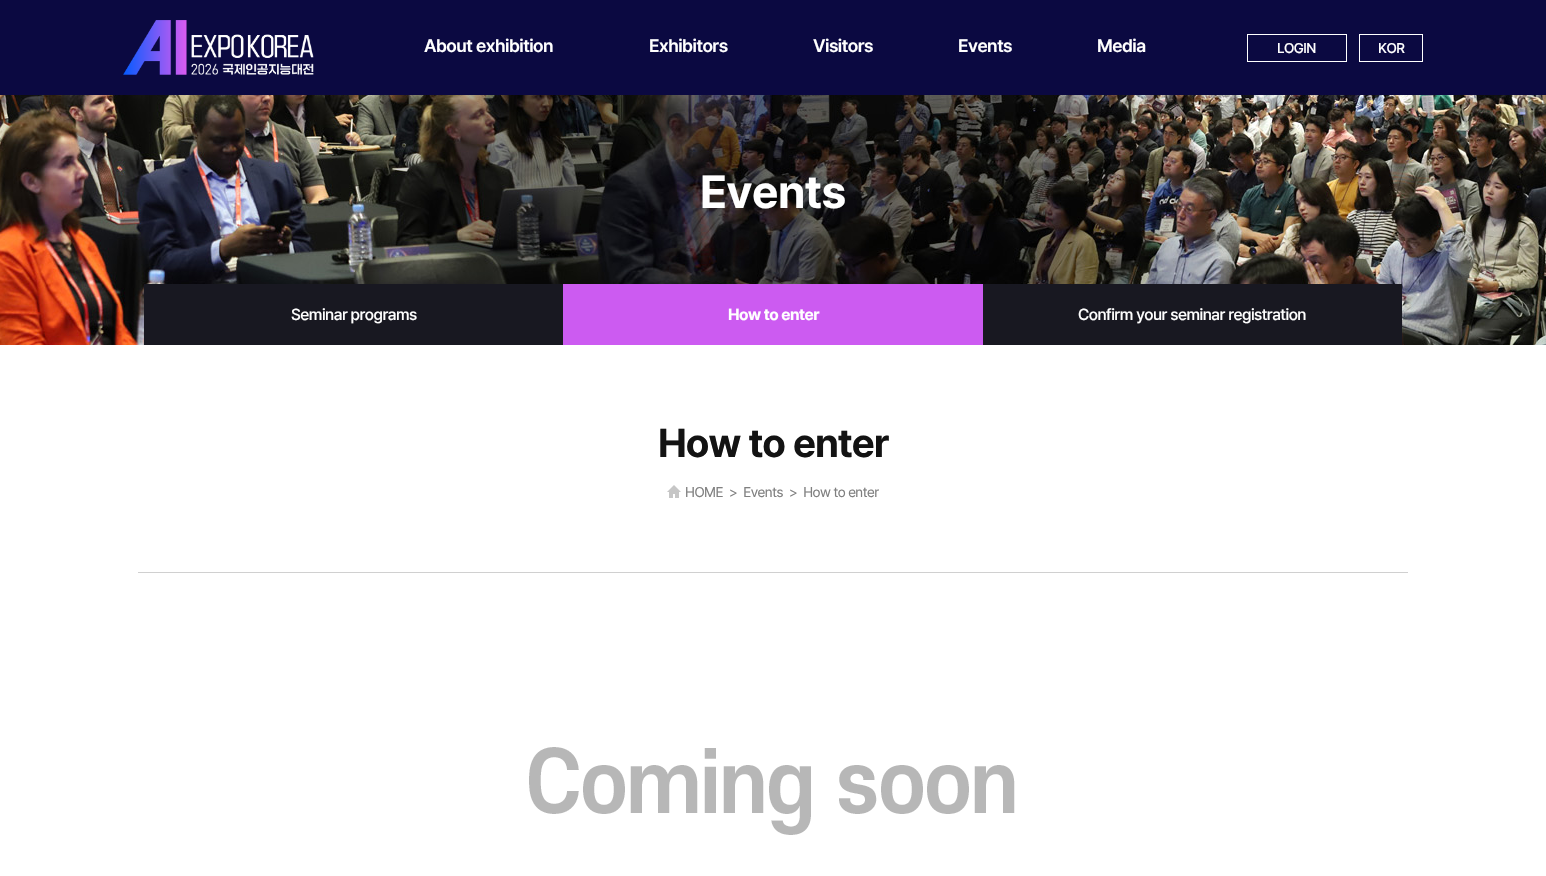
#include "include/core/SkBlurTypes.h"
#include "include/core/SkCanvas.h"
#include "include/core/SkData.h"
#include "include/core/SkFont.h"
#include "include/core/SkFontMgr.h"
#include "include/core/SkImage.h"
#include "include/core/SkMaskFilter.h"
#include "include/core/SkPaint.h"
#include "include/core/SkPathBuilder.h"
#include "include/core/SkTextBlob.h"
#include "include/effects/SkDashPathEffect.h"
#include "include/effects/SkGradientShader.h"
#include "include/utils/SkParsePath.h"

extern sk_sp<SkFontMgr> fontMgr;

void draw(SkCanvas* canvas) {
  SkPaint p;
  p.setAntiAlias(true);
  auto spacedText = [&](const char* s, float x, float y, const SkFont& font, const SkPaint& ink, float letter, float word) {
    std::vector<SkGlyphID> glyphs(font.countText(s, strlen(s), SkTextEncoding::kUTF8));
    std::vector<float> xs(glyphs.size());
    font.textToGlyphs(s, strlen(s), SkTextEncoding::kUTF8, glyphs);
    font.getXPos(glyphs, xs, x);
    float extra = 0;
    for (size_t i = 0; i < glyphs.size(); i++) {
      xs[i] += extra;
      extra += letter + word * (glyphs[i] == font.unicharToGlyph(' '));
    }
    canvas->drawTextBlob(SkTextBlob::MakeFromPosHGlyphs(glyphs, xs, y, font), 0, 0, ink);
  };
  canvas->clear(SK_ColorWHITE);
  p.setColor(SkColorSetRGB(11, 9, 65));
  canvas->drawRect(SkRect::MakeLTRB(0, 0, 1546, 95), p);
  canvas->drawImageRect(SkImages::DeferredFromEncodedData(SkData::MakeFromFileName("images/1.png")), SkRect::MakeLTRB(123, 20, 314, 75), SkSamplingOptions());
  p.setStyle(SkPaint::kStroke_Style);
  p.setStrokeWidth(1);
  p.setColor(SK_ColorWHITE);
  canvas->drawRect(SkRect::MakeLTRB(1247.5f, 34.5f, 1346.5f, 61.5f), p);
  canvas->drawRect(SkRect::MakeLTRB(1359.5f, 34.5f, 1422.5f, 61.5f), p);
  canvas->drawImageRect(SkImages::DeferredFromEncodedData(SkData::MakeFromFileName("images/2.png")), SkRect::MakeLTRB(0, 95, 1546, 345), SkSamplingOptions());
  p.setStyle(SkPaint::kFill_Style);
  p.setColor(SkColorSetRGB(24, 24, 33));
  canvas->drawRect(SkRect::MakeLTRB(144, 284, 563, 345), p);
  p.setColor(SkColorSetRGB(204, 91, 241));
  canvas->drawRect(SkRect::MakeLTRB(563, 284, 983, 345), p);
  p.setColor(SkColorSetRGB(24, 24, 33));
  canvas->drawRect(SkRect::MakeLTRB(983, 284, 1402, 345), p);
  p.setColor(SkColorSetRGB(208, 208, 208));
  canvas->drawRect(SkRect::MakeLTRB(138, 572, 1408, 573), p);
  canvas->drawImageRect(SkImages::DeferredFromEncodedData(SkData::MakeFromFileName("images/3.png")), SkRect::MakeLTRB(667, 485, 681, 498), SkSamplingOptions());
  canvas->drawImageRect(SkImages::DeferredFromEncodedData(SkData::MakeFromFileName("images/4.png")), SkRect::MakeLTRB(529, 747, 1015, 835), SkSamplingOptions());
  SkFont font1(fontMgr->matchFamilyStyle("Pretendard", SkFontStyle(600, SkFontStyle::kNormal_Width, SkFontStyle::kUpright_Slant)), 18);
  font1.setSubpixel(true);
  p.setColor(SK_ColorWHITE);
  spacedText("About exhibition", 424, 52, font1, p, -0.5f, 0);
  spacedText("Exhibitors", 649, 52, font1, p, -0.5f, 0);
  spacedText("Visitors", 813, 52, font1, p, -0.5f, 0);
  spacedText("Events", 958, 52, font1, p, -0.5f, 0);
  spacedText("Media", 1097, 52, font1, p, -0.5f, 0);
  SkFont font2(fontMgr->matchFamilyStyle("Pretendard", SkFontStyle(500, SkFontStyle::kNormal_Width, SkFontStyle::kUpright_Slant)), 14);
  font2.setSubpixel(true);
  spacedText("LOGIN", 1277, 53, font2, p, -0.5f, 0);
  spacedText("KOR", 1378, 53, font2, p, -0.5f, 0);
  SkFont font3(fontMgr->matchFamilyStyle("Pretendard", SkFontStyle::Bold()), 46);
  font3.setSubpixel(true);
  spacedText("Events", 700, 208, font3, p, -0.5f, 0);
  SkFont font4(fontMgr->matchFamilyStyle("Pretendard", SkFontStyle(500, SkFontStyle::kNormal_Width, SkFontStyle::kUpright_Slant)), 16);
  font4.setSubpixel(true);
  spacedText("Seminar programs", 291, 320, font4, p, -0.5f, 0);
  SkFont font5(fontMgr->matchFamilyStyle("Pretendard", SkFontStyle::Bold()), 16);
  font5.setSubpixel(true);
  spacedText("How to enter", 728, 320, font5, p, -0.5f, 0);
  spacedText("Confirm your seminar registration", 1078, 320, font4, p, -0.5f, 0);
  SkFont font6(fontMgr->matchFamilyStyle("Pretendard", SkFontStyle::Bold()), 40);
  font6.setSubpixel(true);
  p.setColor(SkColorSetRGB(19, 19, 19));
  spacedText("How to enter", 658, 457, font6, p, -1, 0);
  SkFont font7(fontMgr->matchFamilyStyle("Pretendard", SkFontStyle::Normal()), 14);
  font7.setSubpixel(true);
  p.setColor(SkColorSetRGB(128, 128, 128));
  spacedText("HOME  >  Events  >  How to enter", 685, 497, font7, p, -0.5f, 0);
}
